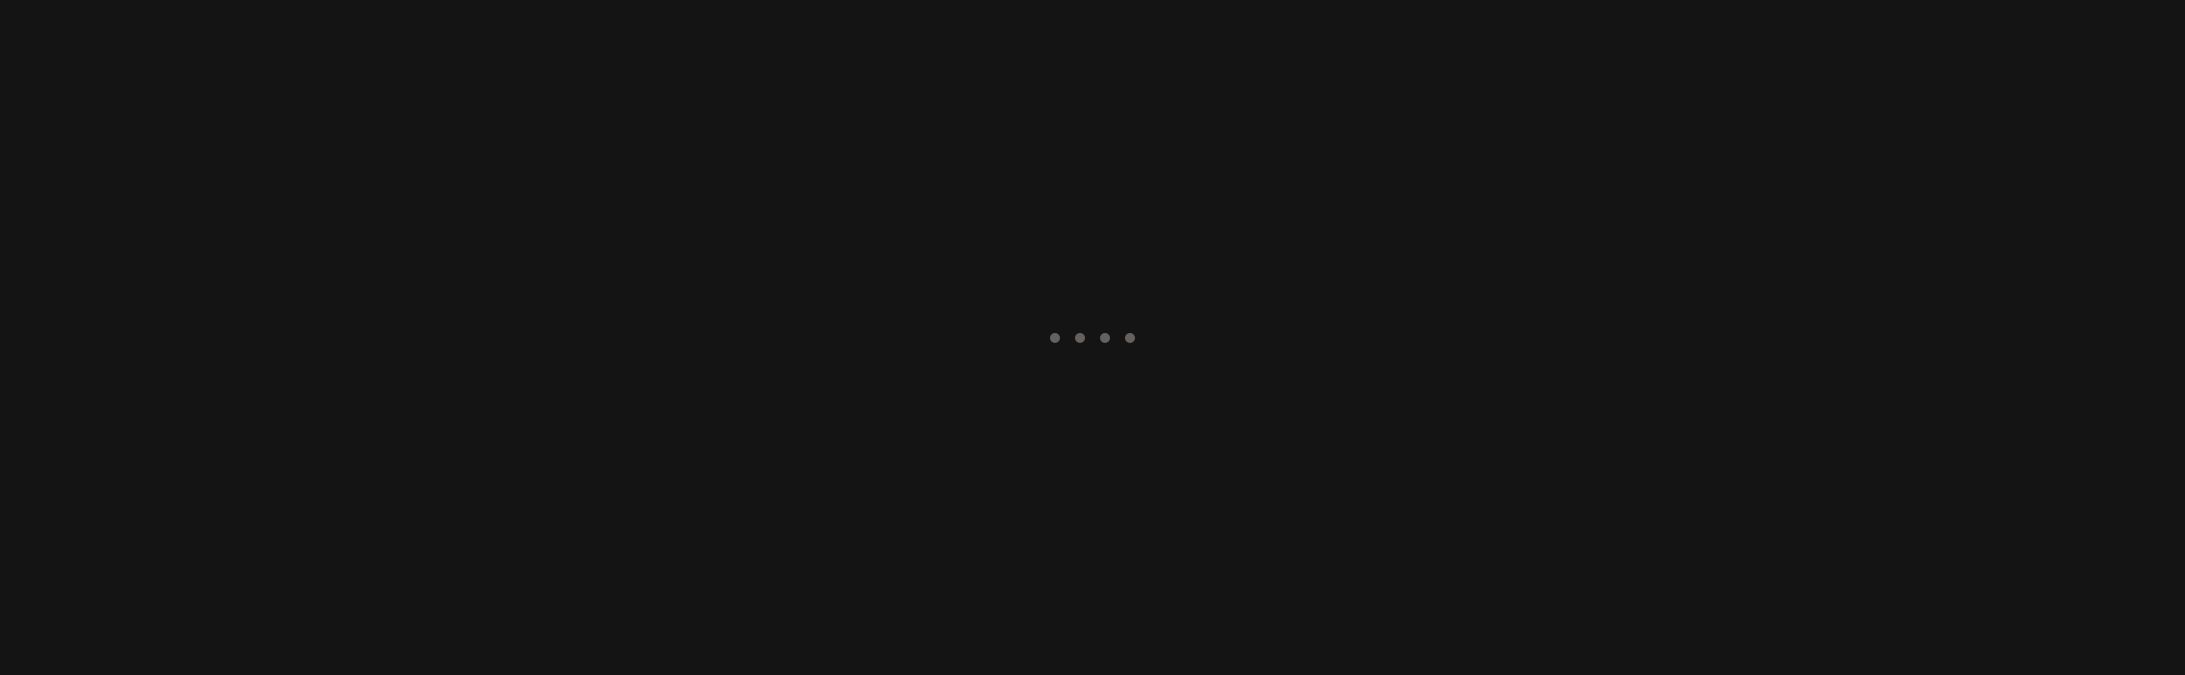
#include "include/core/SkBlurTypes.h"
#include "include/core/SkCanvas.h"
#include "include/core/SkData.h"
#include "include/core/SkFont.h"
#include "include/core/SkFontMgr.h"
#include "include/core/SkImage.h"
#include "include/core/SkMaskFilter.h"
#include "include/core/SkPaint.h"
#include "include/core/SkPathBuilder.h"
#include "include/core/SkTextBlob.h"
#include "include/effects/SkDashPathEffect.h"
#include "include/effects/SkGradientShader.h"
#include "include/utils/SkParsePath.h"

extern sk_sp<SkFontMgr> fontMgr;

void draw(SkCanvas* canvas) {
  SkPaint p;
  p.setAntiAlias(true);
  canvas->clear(SkColorSetRGB(20, 20, 20));
  p.setColor(SkColorSetRGB(101, 97, 95));
  canvas->drawCircle(1055, 338, 5, p);
  canvas->drawCircle(1080, 338, 5, p);
  canvas->drawCircle(1105, 338, 5, p);
  canvas->drawCircle(1130, 338, 5, p);
}
